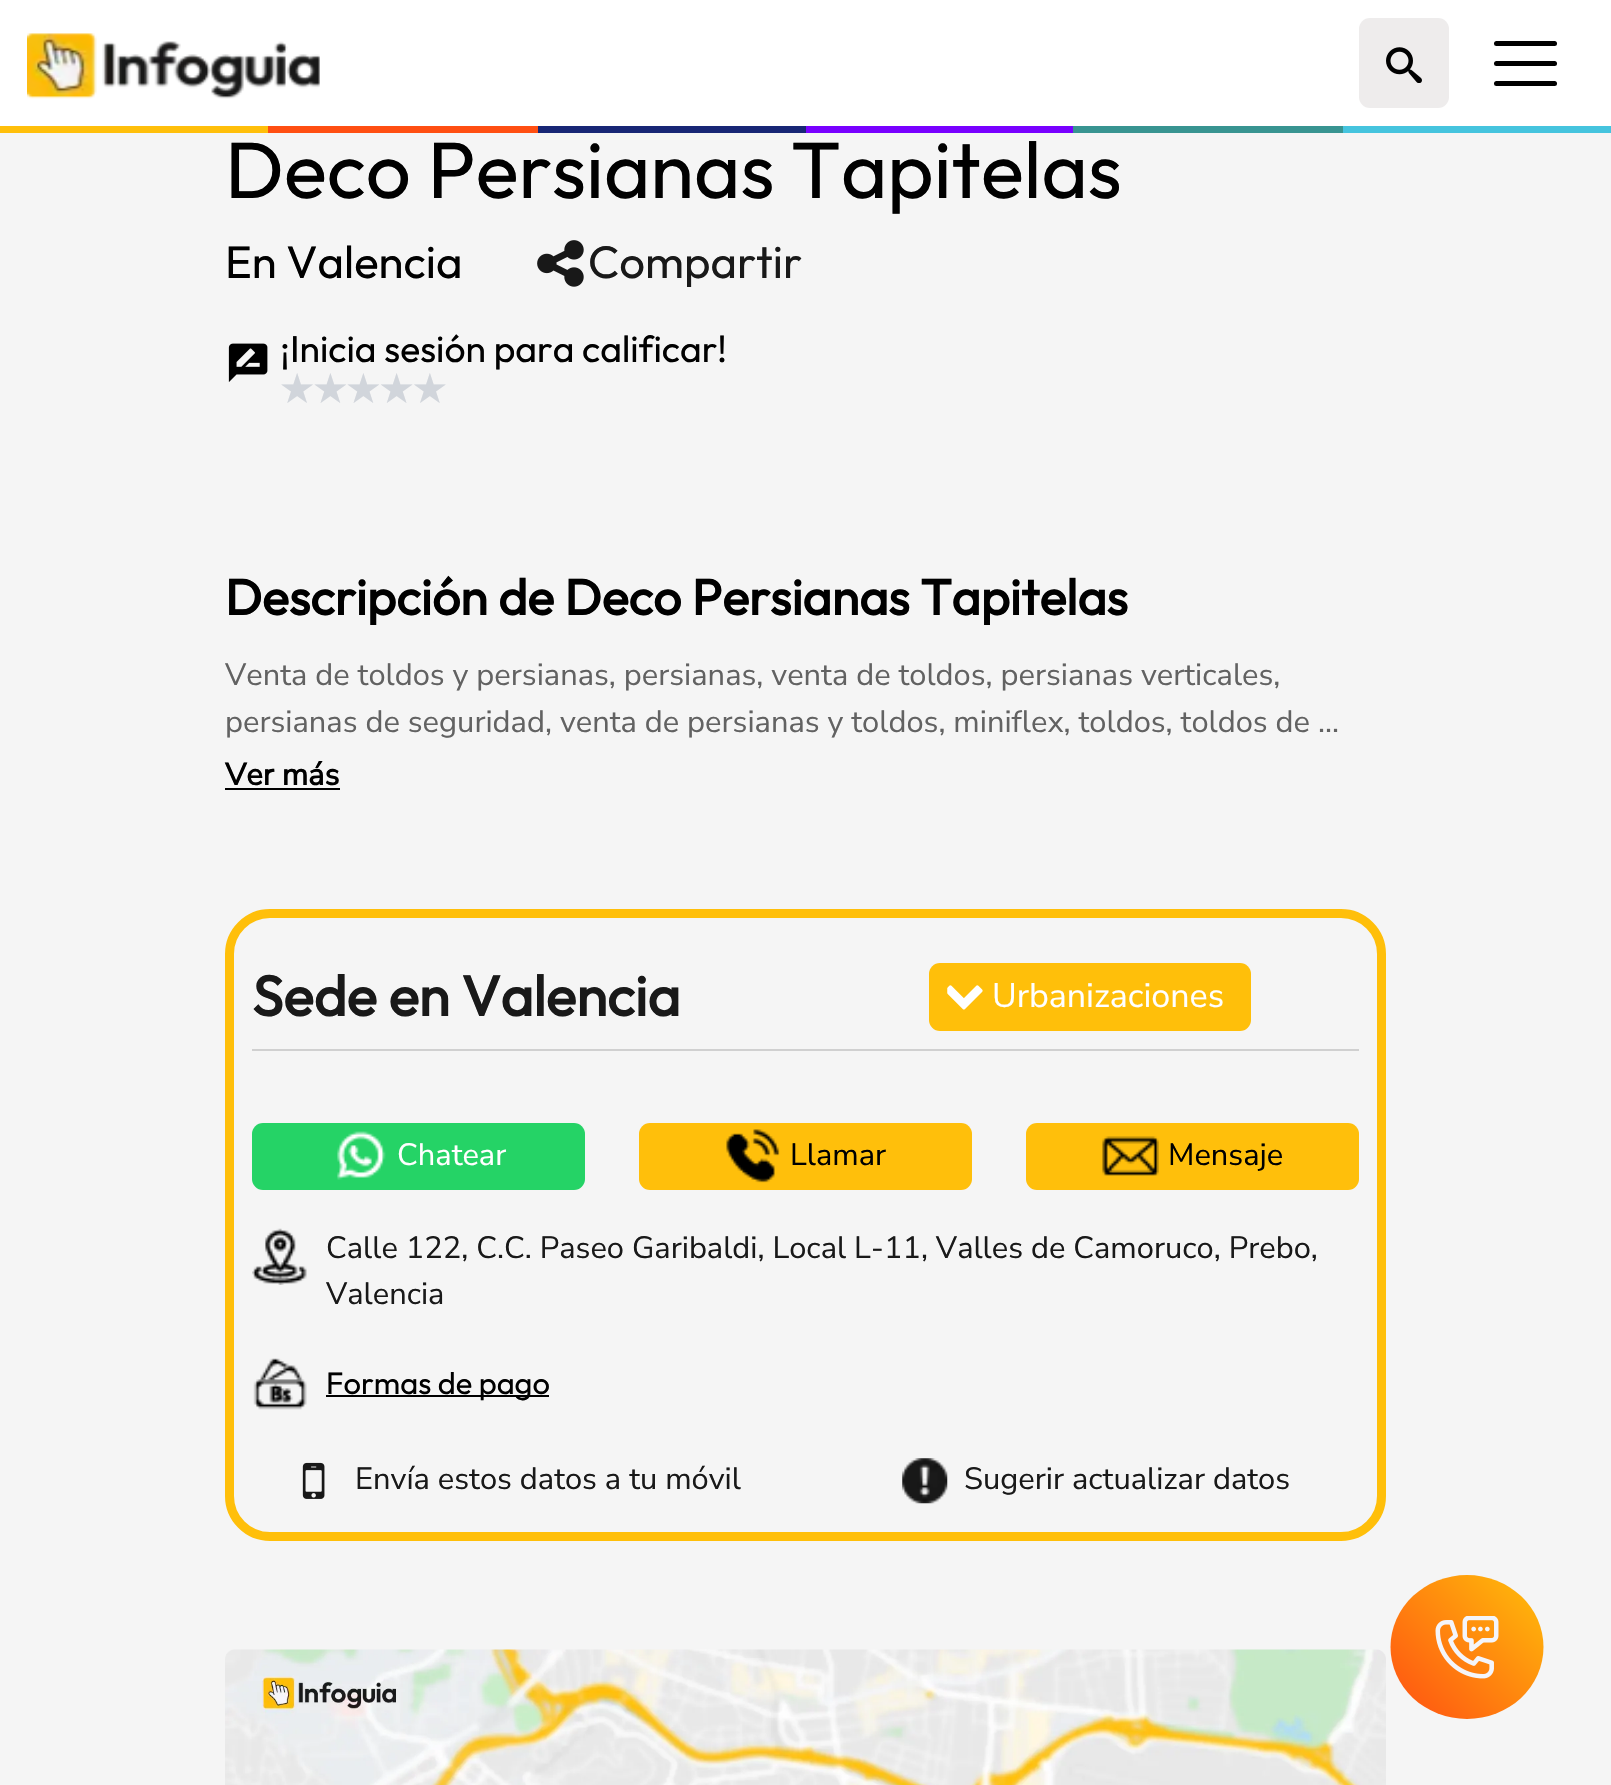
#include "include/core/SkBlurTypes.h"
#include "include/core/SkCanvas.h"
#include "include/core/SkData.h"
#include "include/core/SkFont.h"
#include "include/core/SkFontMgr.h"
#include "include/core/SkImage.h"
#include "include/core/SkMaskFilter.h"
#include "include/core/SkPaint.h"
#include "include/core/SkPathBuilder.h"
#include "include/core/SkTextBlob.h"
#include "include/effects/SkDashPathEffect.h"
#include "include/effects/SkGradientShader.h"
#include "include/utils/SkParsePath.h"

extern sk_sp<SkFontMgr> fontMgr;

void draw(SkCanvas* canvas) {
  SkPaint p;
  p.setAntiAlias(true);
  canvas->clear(SkColorSetRGB(245, 245, 245));
  p.setColor(SK_ColorWHITE);
  canvas->drawRect(SkRect::MakeLTRB(0, 0, 1611, 126), p);
  canvas->drawImageRect(SkImages::DeferredFromEncodedData(SkData::MakeFromFileName("images/1.png")), SkRect::MakeLTRB(27, 33, 320, 99), SkSamplingOptions());
  p.setColor(SkColorSetRGB(238, 236, 236));
  canvas->drawRoundRect(SkRect::MakeLTRB(1359, 18, 1449, 108), 11, 11, p);
  canvas->drawImageRect(SkImages::DeferredFromEncodedData(SkData::MakeFromFileName("images/2.png")), SkRect::MakeLTRB(1386, 47, 1422, 83), SkSamplingOptions());
  p.setColor(SK_ColorBLACK);
  canvas->drawRoundRect(SkRect::MakeLTRB(1494, 41, 1557, 46), 2.5f, 2.5f, p);
  canvas->drawRoundRect(SkRect::MakeLTRB(1494, 61, 1557, 66), 2.5f, 2.5f, p);
  canvas->drawRoundRect(SkRect::MakeLTRB(1494, 81, 1557, 86), 2.5f, 2.5f, p);
  p.setColor(SkColorSetRGB(255, 191, 10));
  canvas->drawRect(SkRect::MakeLTRB(0, 126, 268, 133), p);
  p.setColor(SkColorSetRGB(255, 79, 18));
  canvas->drawRect(SkRect::MakeLTRB(268, 126, 538, 133), p);
  p.setColor(SkColorSetRGB(23, 38, 117));
  canvas->drawRect(SkRect::MakeLTRB(538, 126, 806, 133), p);
  p.setColor(SkColorSetRGB(120, 0, 255));
  canvas->drawRect(SkRect::MakeLTRB(806, 126, 1073, 133), p);
  p.setColor(SkColorSetRGB(56, 148, 145));
  canvas->drawRect(SkRect::MakeLTRB(1073, 126, 1343, 133), p);
  p.setColor(SkColorSetRGB(69, 196, 222));
  canvas->drawRect(SkRect::MakeLTRB(1343, 126, 1611, 133), p);
  canvas->drawImageRect(SkImages::DeferredFromEncodedData(SkData::MakeFromFileName("images/3.png")), SkRect::MakeLTRB(537, 240, 584, 287), SkSamplingOptions());
  canvas->drawImageRect(SkImages::DeferredFromEncodedData(SkData::MakeFromFileName("images/4.png")), SkRect::MakeLTRB(228, 343, 268, 382), SkSamplingOptions());
  p.setColor(SK_ColorBLACK);
  canvas->drawRect(SkRect::MakeLTRB(225, 788, 340, 790), p);
  p.setStyle(SkPaint::kStroke_Style);
  p.setStrokeWidth(9);
  p.setColor(SkColorSetRGB(255, 191, 10));
  canvas->drawRoundRect(SkRect::MakeLTRB(229.5f, 913.5f, 1381.5f, 1536.5f), 40.5f, 40.5f, p);
  p.setStyle(SkPaint::kFill_Style);
  p.setColor(SkColorSetRGB(208, 208, 208));
  canvas->drawRect(SkRect::MakeLTRB(252, 1049, 1359, 1051), p);
  p.setColor(SkColorSetRGB(255, 191, 10));
  canvas->drawRoundRect(SkRect::MakeLTRB(929, 963, 1251, 1031), 11, 11, p);
  canvas->drawImageRect(SkImages::DeferredFromEncodedData(SkData::MakeFromFileName("images/5.png")), SkRect::MakeLTRB(947, 985, 983, 1010), SkSamplingOptions());
  p.setColor(SkColorSetRGB(37, 211, 102));
  canvas->drawRoundRect(SkRect::MakeLTRB(252, 1123, 585, 1190), 11, 11, p);
  canvas->drawImageRect(SkImages::DeferredFromEncodedData(SkData::MakeFromFileName("images/6.png")), SkRect::MakeLTRB(337, 1131, 386, 1180), SkSamplingOptions());
  p.setColor(SkColorSetRGB(255, 191, 11));
  canvas->drawRoundRect(SkRect::MakeLTRB(639, 1123, 972, 1190), 11, 11, p);
  canvas->drawImageRect(SkImages::DeferredFromEncodedData(SkData::MakeFromFileName("images/7.png")), SkRect::MakeLTRB(726, 1129, 780, 1183), SkSamplingOptions());
  canvas->drawRoundRect(SkRect::MakeLTRB(1026, 1123, 1359, 1190), 11, 11, p);
  canvas->drawImageRect(SkImages::DeferredFromEncodedData(SkData::MakeFromFileName("images/8.png")), SkRect::MakeLTRB(1102, 1136, 1159, 1176), SkSamplingOptions());
  canvas->drawImageRect(SkImages::DeferredFromEncodedData(SkData::MakeFromFileName("images/9.png")), SkRect::MakeLTRB(252, 1228, 307, 1285), SkSamplingOptions());
  canvas->drawImageRect(SkImages::DeferredFromEncodedData(SkData::MakeFromFileName("images/10.png")), SkRect::MakeLTRB(253, 1358, 307, 1410), SkSamplingOptions());
  p.setColor(SK_ColorBLACK);
  canvas->drawRect(SkRect::MakeLTRB(326, 1395, 549, 1397), p);
  canvas->drawImageRect(SkImages::DeferredFromEncodedData(SkData::MakeFromFileName("images/11.png")), SkRect::MakeLTRB(302, 1462, 325, 1499), SkSamplingOptions());
  canvas->drawImageRect(SkImages::DeferredFromEncodedData(SkData::MakeFromFileName("images/12.png")), SkRect::MakeLTRB(902, 1458, 948, 1504), SkSamplingOptions());
  canvas->drawImageRect(SkImages::DeferredFromEncodedData(SkData::MakeFromFileName("images/13.png")), SkRect::MakeLTRB(225, 1649, 1386, 1785), SkSamplingOptions());
  {
    const SkColor colors[] = {SkColorSetRGB(2, 0, 36), SkColorSetRGB(255, 79, 18), SkColorSetRGB(255, 191, 10)};
    const float stops[] = {0, 0, 1};
    const SkPoint ends[] = {{1393, 1721}, {1541, 1573}};
    p.setShader(SkGradientShader::MakeLinear(ends, colors, stops, 3, SkTileMode::kClamp));
    p.setAlpha(255);
  }
  canvas->drawOval(SkRect::MakeLTRB(1390.5f, 1575, 1543.5f, 1719), p);
  canvas->drawImageRect(SkImages::DeferredFromEncodedData(SkData::MakeFromFileName("images/14.png")), SkRect::MakeLTRB(1435, 1616, 1499, 1679), SkSamplingOptions());
  SkFont font1(fontMgr->matchFamilyStyle("Outfit", SkFontStyle(100, SkFontStyle::kNormal_Width, SkFontStyle::kUpright_Slant)), 79.75f);
  font1.setSubpixel(true);
  p.setShader(nullptr);
  p.setColor(SK_ColorBLACK);
  canvas->drawString("Deco Persianas Tapitelas", 225, 198, font1, p);
  SkFont font2(fontMgr->matchFamilyStyle("Outfit", SkFontStyle(100, SkFontStyle::kNormal_Width, SkFontStyle::kUpright_Slant)), 45.5f);
  font2.setSubpixel(true);
  canvas->drawString("En Valencia", 225, 278, font2, p);
  p.setColor(SkColorSetRGB(25, 25, 25));
  canvas->drawString("Compartir", 588, 278, font2, p);
  SkFont font3(fontMgr->matchFamilyStyle("Outfit", SkFontStyle(100, SkFontStyle::kNormal_Width, SkFontStyle::kUpright_Slant)), 37.25f);
  font3.setSubpixel(true);
  p.setColor(SK_ColorBLACK);
  canvas->drawString("¡Inicia sesión para calificar!", 280, 362, font3, p);
  SkFont font4(fontMgr->matchFamilyStyle("DejaVu Sans", SkFontStyle::Bold()), 37);
  font4.setSubpixel(true);
  p.setColor(SkColorSetRGB(209, 213, 219));
  canvas->drawString("★★★★★", 280, 402, font4, p);
  SkFont font5(fontMgr->matchFamilyStyle("Outfit", SkFontStyle::Bold()), 50.1f);
  font5.setSubpixel(true);
  p.setColor(SK_ColorBLACK);
  canvas->drawString("Descripción de Deco Persianas Tapitelas", 225, 615, font5, p);
  SkFont font6(fontMgr->matchFamilyStyle("Nunito Sans", SkFontStyle::Normal()), 30.85f);
  font6.setSubpixel(true);
  p.setColor(SkColorSetRGB(98, 98, 98));
  canvas->drawString("Venta de toldos y persianas, persianas, venta de toldos, persianas verticales,", 225, 685, font6, p);
  canvas->drawString("persianas de seguridad, venta de persianas y toldos, miniflex, toldos, toldos de ...", 225, 732, font6, p);
  SkFont font7(fontMgr->matchFamilyStyle("Nunito Sans", SkFontStyle::Bold()), 30.85f);
  font7.setSubpixel(true);
  p.setColor(SK_ColorBLACK);
  canvas->drawString("Ver más", 225, 785, font7, p);
  SkFont font8(fontMgr->matchFamilyStyle("Outfit", SkFontStyle::Bold()), 56.5f);
  font8.setSubpixel(true);
  p.setColor(SkColorSetRGB(25, 25, 25));
  canvas->drawString("Sede en Valencia", 252, 1016, font8, p);
  SkFont font9(fontMgr->matchFamilyStyle("Nunito Sans", SkFontStyle::Normal()), 34);
  font9.setSubpixel(true);
  p.setColor(SK_ColorWHITE);
  canvas->drawString("Urbanizaciones", 992, 1007, font9, p);
  canvas->drawString("Chatear", 397, 1165, font6, p);
  p.setColor(SK_ColorBLACK);
  canvas->drawString("Llamar", 790, 1165, font6, p);
  canvas->drawString("Mensaje", 1168, 1165, font6, p);
  p.setColor(SkColorSetRGB(25, 25, 25));
  canvas->drawString("Calle 122, C.C. Paseo Garibaldi, Local L-11, Valles de Camoruco, Prebo,", 326, 1258, font6, p);
  canvas->drawString("Valencia", 326, 1304, font6, p);
  SkFont font10(fontMgr->matchFamilyStyle("Outfit", SkFontStyle(100, SkFontStyle::kNormal_Width, SkFontStyle::kUpright_Slant)), 30.85f);
  font10.setSubpixel(true);
  p.setColor(SK_ColorBLACK);
  canvas->drawString("Formas de pago", 326, 1394, font10, p);
  p.setColor(SkColorSetRGB(25, 25, 25));
  canvas->drawString("Envía estos datos a tu móvil", 355, 1489, font6, p);
  canvas->drawString("Sugerir actualizar datos", 964, 1489, font6, p);
}
